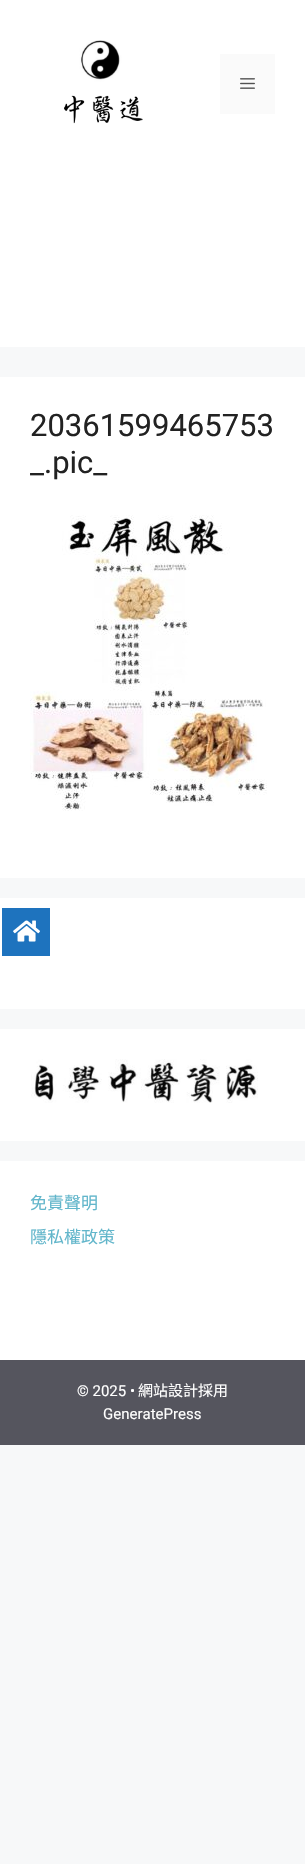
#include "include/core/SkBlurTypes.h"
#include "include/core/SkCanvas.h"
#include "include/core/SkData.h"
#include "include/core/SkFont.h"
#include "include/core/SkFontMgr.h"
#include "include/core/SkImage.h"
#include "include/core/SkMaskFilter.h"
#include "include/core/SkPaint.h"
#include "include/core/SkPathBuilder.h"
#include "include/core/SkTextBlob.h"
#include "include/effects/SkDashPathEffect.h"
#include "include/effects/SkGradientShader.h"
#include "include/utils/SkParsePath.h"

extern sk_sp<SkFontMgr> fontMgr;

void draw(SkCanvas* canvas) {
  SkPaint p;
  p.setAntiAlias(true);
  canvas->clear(SkColorSetRGB(247, 248, 249));
  p.setColor(SK_ColorWHITE);
  canvas->drawRect(SkRect::MakeLTRB(0, 0, 305, 347), p);
  canvas->drawImageRect(SkImages::DeferredFromEncodedData(SkData::MakeFromFileName("images/1.png")), SkRect::MakeLTRB(64, 40, 143, 124), SkSamplingOptions());
  p.setColor(SkColorSetRGB(250, 250, 250));
  canvas->drawRect(SkRect::MakeLTRB(220, 54, 275, 114), p);
  canvas->drawImageRect(SkImages::DeferredFromEncodedData(SkData::MakeFromFileName("images/2.png")), SkRect::MakeLTRB(240, 78, 255, 89), SkSamplingOptions());
  p.setColor(SK_ColorWHITE);
  canvas->drawRect(SkRect::MakeLTRB(0, 377, 305, 878), p);
  canvas->drawImageRect(SkImages::DeferredFromEncodedData(SkData::MakeFromFileName("images/3.png")), SkRect::MakeLTRB(30, 515, 267, 811), SkSamplingOptions());
  canvas->drawRect(SkRect::MakeLTRB(0, 898, 305, 1009), p);
  canvas->drawRect(SkRect::MakeLTRB(0, 1029, 305, 1141), p);
  canvas->drawImageRect(SkImages::DeferredFromEncodedData(SkData::MakeFromFileName("images/4.png")), SkRect::MakeLTRB(31, 1059, 258, 1103), SkSamplingOptions());
  p.setColor(SkColorSetRGB(30, 115, 190));
  canvas->drawRect(SkRect::MakeLTRB(2, 908, 50, 956), p);
  canvas->drawImageRect(SkImages::DeferredFromEncodedData(SkData::MakeFromFileName("images/5.png")), SkRect::MakeLTRB(13, 920, 40, 942), SkSamplingOptions());
  p.setColor(SK_ColorWHITE);
  canvas->drawRect(SkRect::MakeLTRB(0, 1161, 305, 1360), p);
  p.setColor(SkColorSetRGB(85, 85, 94));
  canvas->drawRect(SkRect::MakeLTRB(0, 1360, 305, 1445), p);
  SkFont font1(fontMgr->matchFamilyStyle("Roboto", SkFontStyle::Normal()), 31);
  font1.setSubpixel(true);
  p.setColor(SkColorSetRGB(34, 34, 34));
  canvas->drawString("20361599465753", 30, 436, font1, p);
  canvas->drawString("_.pic_", 30, 473, font1, p);
  SkFont font2(fontMgr->matchFamilyStyle("Noto Sans CJK TC", SkFontStyle::Normal()), 17);
  font2.setSubpixel(true);
  p.setColor(SkColorSetRGB(98, 182, 203));
  canvas->drawString("免責聲明", 30, 1209, font2, p);
  canvas->drawString("隱私權政策", 30, 1243, font2, p);
  SkFont font3(fontMgr->matchFamilyStyle("Roboto", SkFontStyle::Normal()), 15);
  font3.setSubpixel(true);
  p.setColor(SK_ColorWHITE);
  canvas->drawString("© 2025 •", 77, 1396, font3, p);
  SkFont font4(fontMgr->matchFamilyStyle("Noto Sans CJK TC", SkFontStyle::Normal()), 15);
  font4.setSubpixel(true);
  canvas->drawString("網站設計採用", 138, 1396, font4, p);
  canvas->drawString("GeneratePress", 103, 1419, font3, p);
}
